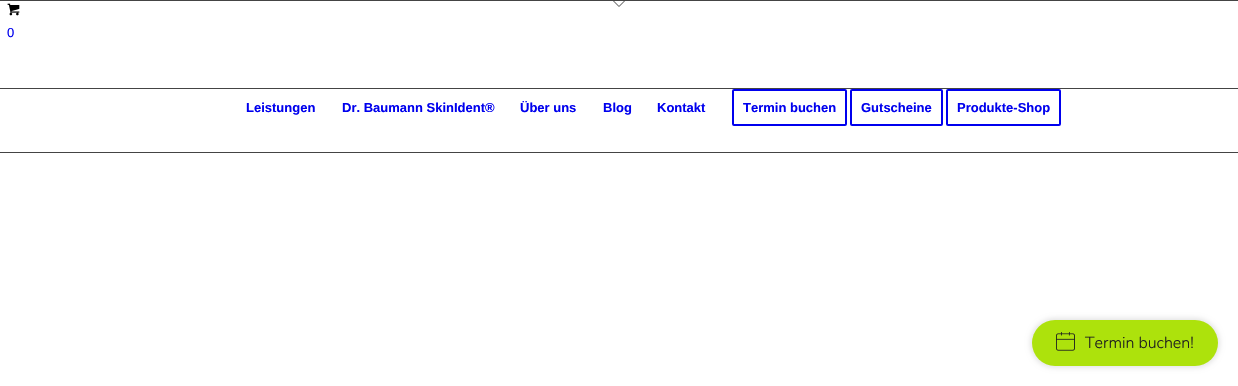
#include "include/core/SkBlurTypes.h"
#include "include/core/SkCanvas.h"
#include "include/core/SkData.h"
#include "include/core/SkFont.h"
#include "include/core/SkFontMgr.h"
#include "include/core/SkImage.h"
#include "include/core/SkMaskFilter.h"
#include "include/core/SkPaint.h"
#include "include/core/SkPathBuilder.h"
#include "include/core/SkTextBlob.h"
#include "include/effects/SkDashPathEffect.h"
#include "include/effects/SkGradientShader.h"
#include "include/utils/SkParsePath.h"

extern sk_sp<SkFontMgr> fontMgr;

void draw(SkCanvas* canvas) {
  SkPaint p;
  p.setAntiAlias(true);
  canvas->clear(SK_ColorWHITE);
  p.setColor(SkColorSetRGB(68, 68, 68));
  canvas->drawRect(SkRect::MakeLTRB(0, 0, 1238, 1), p);
  canvas->drawRect(SkRect::MakeLTRB(0, 152, 1238, 153), p);
  p.setStyle(SkPaint::kStroke_Style);
  p.setStrokeWidth(1);
  canvas->drawPath(SkPathBuilder().moveTo(619, -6.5f).lineTo(625.5f, 0).lineTo(619, 6.5f).lineTo(612.5f, 0).close().detach(), p);
  canvas->drawImageRect(SkImages::DeferredFromEncodedData(SkData::MakeFromFileName("images/1.png")), SkRect::MakeLTRB(7, 3, 20, 16), SkSamplingOptions());
  p.setStrokeWidth(2);
  p.setColor(SkColorSetRGB(0, 0, 238));
  canvas->drawRoundRect(SkRect::MakeLTRB(733, 90, 846, 125), 1, 1, p);
  canvas->drawRoundRect(SkRect::MakeLTRB(851, 90, 942, 125), 1, 1, p);
  canvas->drawRoundRect(SkRect::MakeLTRB(947, 90, 1060, 125), 1, 1, p);
  p.setStyle(SkPaint::kFill_Style);
  p.setColor(SkColorSetRGB(68, 68, 68));
  canvas->drawRect(SkRect::MakeLTRB(0, 88, 1238, 89), p);
  p.setColor(SkColorSetARGB(26, 0, 0, 0));
  p.setMaskFilter(SkMaskFilter::MakeBlur(kNormal_SkBlurStyle, 2.5f));
  canvas->drawRoundRect(SkRect::MakeLTRB(1030, 318, 1220, 368), 25, 25, p);
  p.setMaskFilter(nullptr);
  p.setColor(SkColorSetRGB(173, 226, 12));
  canvas->drawRoundRect(SkRect::MakeLTRB(1032, 320, 1218, 366), 23, 23, p);
  canvas->drawImageRect(SkImages::DeferredFromEncodedData(SkData::MakeFromFileName("images/2.png")), SkRect::MakeLTRB(1056, 332, 1075, 351), SkSamplingOptions());
  SkFont font1(fontMgr->matchFamilyStyle("Liberation Sans", SkFontStyle::Normal()), 13);
  font1.setSubpixel(true);
  p.setColor(SkColorSetRGB(0, 0, 238));
  canvas->drawString("0", 7, 37, font1, p);
  SkFont font2(fontMgr->matchFamilyStyle("Liberation Sans", SkFontStyle::Bold()), 13);
  font2.setSubpixel(true);
  canvas->drawString("Leistungen", 246, 112, font2, p);
  canvas->drawString("Dr. Baumann SkinIdent®", 342, 112, font2, p);
  canvas->drawString("Über uns", 520, 112, font2, p);
  canvas->drawString("Blog", 603, 112, font2, p);
  canvas->drawString("Kontakt", 657, 112, font2, p);
  canvas->drawString("Termin buchen", 743, 112, font2, p);
  canvas->drawString("Gutscheine", 861, 112, font2, p);
  canvas->drawString("Produkte-Shop", 957, 112, font2, p);
  SkFont font3(fontMgr->matchFamilyStyle("Nunito", SkFontStyle(300, SkFontStyle::kNormal_Width, SkFontStyle::kUpright_Slant)), 16);
  font3.setSubpixel(true);
  p.setColor(SkColorSetRGB(31, 31, 31));
  canvas->drawString("Termin buchen!", 1085, 348, font3, p);
}
